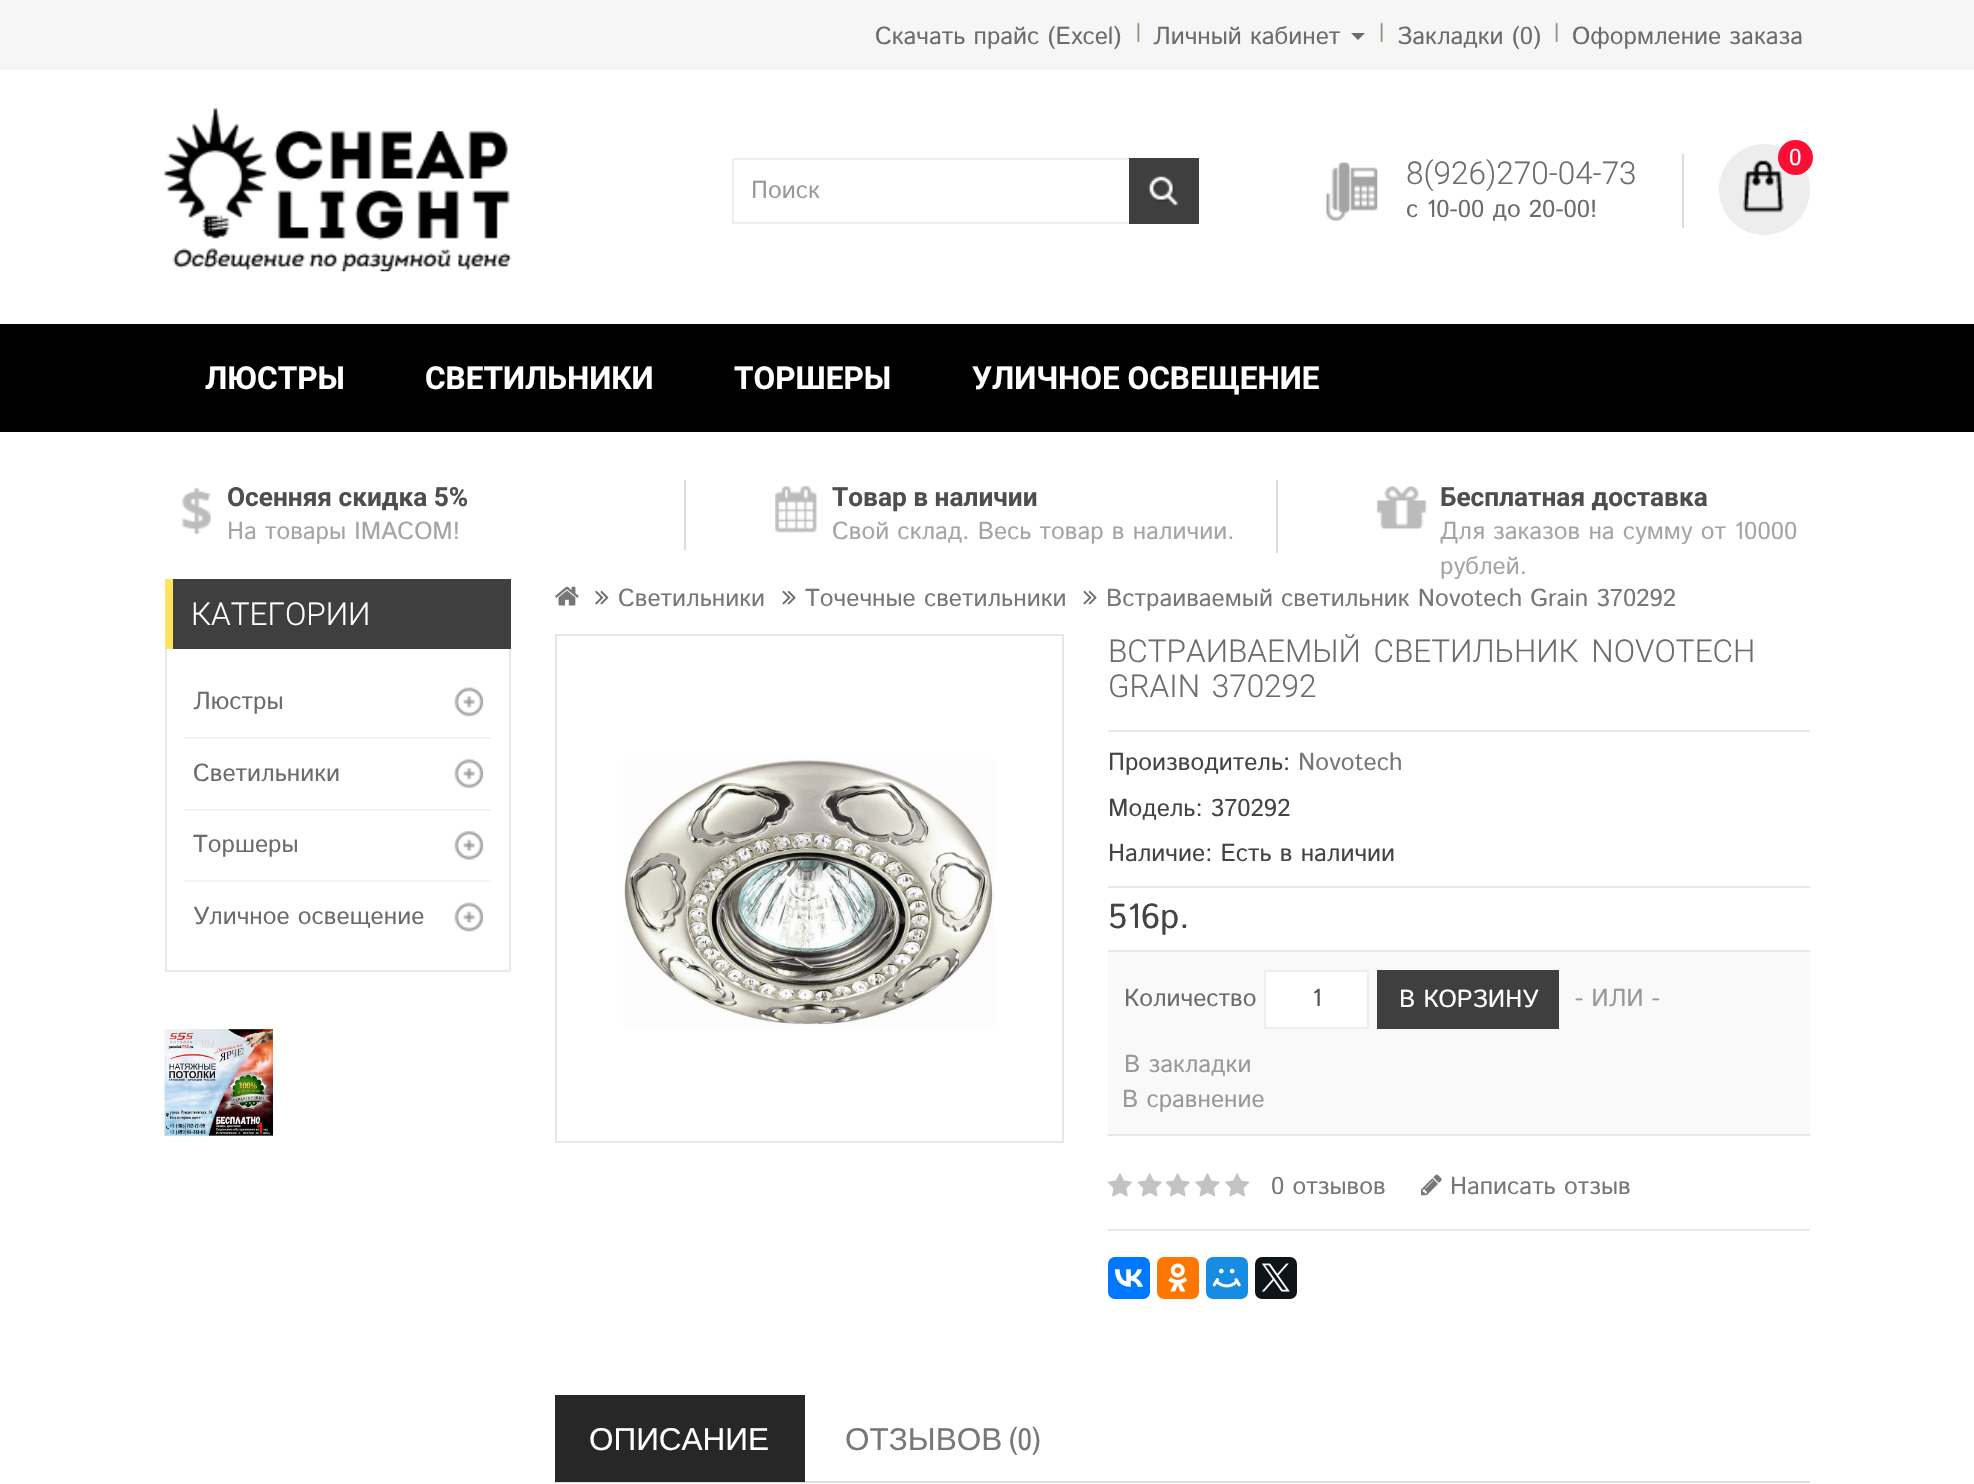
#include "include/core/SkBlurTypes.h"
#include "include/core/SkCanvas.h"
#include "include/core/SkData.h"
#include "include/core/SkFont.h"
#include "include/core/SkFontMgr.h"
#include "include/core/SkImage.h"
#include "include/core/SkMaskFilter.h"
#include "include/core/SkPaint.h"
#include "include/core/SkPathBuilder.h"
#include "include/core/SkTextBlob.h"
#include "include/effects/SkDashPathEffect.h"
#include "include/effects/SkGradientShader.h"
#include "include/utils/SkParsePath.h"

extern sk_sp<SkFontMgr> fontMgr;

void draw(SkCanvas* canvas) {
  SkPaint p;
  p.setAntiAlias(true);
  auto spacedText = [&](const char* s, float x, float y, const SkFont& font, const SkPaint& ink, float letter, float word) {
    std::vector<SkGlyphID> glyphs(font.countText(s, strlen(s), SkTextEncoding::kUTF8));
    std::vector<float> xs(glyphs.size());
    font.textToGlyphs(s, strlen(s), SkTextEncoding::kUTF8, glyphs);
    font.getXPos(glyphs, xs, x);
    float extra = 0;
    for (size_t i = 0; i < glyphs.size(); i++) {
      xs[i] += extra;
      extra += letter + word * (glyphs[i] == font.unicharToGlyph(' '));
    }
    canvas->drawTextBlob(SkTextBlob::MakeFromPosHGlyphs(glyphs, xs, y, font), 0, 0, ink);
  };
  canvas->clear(SK_ColorWHITE);
  p.setColor(SkColorSetRGB(246, 246, 246));
  canvas->drawRect(SkRect::MakeLTRB(0, 0, 1974, 70), p);
  canvas->drawImageRect(SkImages::DeferredFromEncodedData(SkData::MakeFromFileName("images/1.png")), SkRect::MakeLTRB(1137, 22, 1140, 42), SkSamplingOptions());
  p.setColor(SkColorSetRGB(108, 108, 108));
  canvas->drawPath(SkPathBuilder().moveTo(1351, 33).lineTo(1365, 33).lineTo(1358, 40).close().detach(), p);
  canvas->drawImageRect(SkImages::DeferredFromEncodedData(SkData::MakeFromFileName("images/2.png")), SkRect::MakeLTRB(1380, 22, 1383, 42), SkSamplingOptions());
  canvas->drawImageRect(SkImages::DeferredFromEncodedData(SkData::MakeFromFileName("images/2.png")), SkRect::MakeLTRB(1555, 22, 1558, 42), SkSamplingOptions());
  canvas->drawImageRect(SkImages::DeferredFromEncodedData(SkData::MakeFromFileName("images/3.png")), SkRect::MakeLTRB(164, 108, 512, 272), SkSamplingOptions());
  p.setStyle(SkPaint::kStroke_Style);
  p.setStrokeWidth(2);
  p.setColor(SkColorSetRGB(238, 238, 238));
  canvas->drawRect(SkRect::MakeLTRB(733, 159, 1168, 223), p);
  p.setStyle(SkPaint::kFill_Style);
  p.setColor(SkColorSetRGB(63, 63, 63));
  canvas->drawRect(SkRect::MakeLTRB(1129, 158, 1199, 224), p);
  canvas->drawImageRect(SkImages::DeferredFromEncodedData(SkData::MakeFromFileName("images/4.png")), SkRect::MakeLTRB(1148, 176, 1179, 207), SkSamplingOptions());
  canvas->drawImageRect(SkImages::DeferredFromEncodedData(SkData::MakeFromFileName("images/5.png")), SkRect::MakeLTRB(1326, 162, 1378, 221), SkSamplingOptions());
  p.setColor(SkColorSetRGB(220, 220, 220));
  canvas->drawRect(SkRect::MakeLTRB(1682, 154, 1684, 228), p);
  p.setColor(SkColorSetRGB(237, 237, 237));
  canvas->drawCircle(1764.5f, 189.5f, 45.5f, p);
  canvas->drawImageRect(SkImages::DeferredFromEncodedData(SkData::MakeFromFileName("images/6.png")), SkRect::MakeLTRB(1742, 160, 1784, 213), SkSamplingOptions());
  p.setColor(SkColorSetRGB(253, 14, 53));
  canvas->drawCircle(1795.5f, 157.5f, 17.5f, p);
  p.setColor(SK_ColorBLACK);
  canvas->drawRect(SkRect::MakeLTRB(0, 324, 1974, 432), p);
  p.setColor(SkColorSetRGB(220, 220, 220));
  canvas->drawRect(SkRect::MakeLTRB(684, 480, 686, 550), p);
  canvas->drawImageRect(SkImages::DeferredFromEncodedData(SkData::MakeFromFileName("images/7.png")), SkRect::MakeLTRB(181, 487, 211, 535), SkSamplingOptions());
  canvas->drawRect(SkRect::MakeLTRB(1276, 480, 1278, 553), p);
  canvas->drawImageRect(SkImages::DeferredFromEncodedData(SkData::MakeFromFileName("images/8.png")), SkRect::MakeLTRB(775, 485, 817, 533), SkSamplingOptions());
  canvas->drawImageRect(SkImages::DeferredFromEncodedData(SkData::MakeFromFileName("images/9.png")), SkRect::MakeLTRB(1376, 486, 1427, 529), SkSamplingOptions());
  p.setColor(SkColorSetRGB(63, 63, 63));
  canvas->drawRect(SkRect::MakeLTRB(173, 579, 511, 649), p);
  p.setColor(SkColorSetRGB(255, 227, 95));
  canvas->drawRect(SkRect::MakeLTRB(165, 579, 173, 649), p);
  p.setColor(SkColorSetRGB(233, 233, 233));
  canvas->drawRect(SkRect::MakeLTRB(509, 649, 511, 971), p);
  canvas->drawRect(SkRect::MakeLTRB(165, 970, 511, 972), p);
  canvas->drawRect(SkRect::MakeLTRB(165, 649, 167, 971), p);
  p.setColor(SkColorSetRGB(245, 245, 245));
  canvas->drawRect(SkRect::MakeLTRB(184, 737, 492, 739), p);
  canvas->drawImageRect(SkImages::DeferredFromEncodedData(SkData::MakeFromFileName("images/10.png")), SkRect::MakeLTRB(454, 687, 483, 717), SkSamplingOptions());
  canvas->drawRect(SkRect::MakeLTRB(184, 809, 492, 811), p);
  canvas->drawImageRect(SkImages::DeferredFromEncodedData(SkData::MakeFromFileName("images/11.png")), SkRect::MakeLTRB(454, 759, 483, 788), SkSamplingOptions());
  canvas->drawRect(SkRect::MakeLTRB(184, 880, 492, 882), p);
  canvas->drawImageRect(SkImages::DeferredFromEncodedData(SkData::MakeFromFileName("images/12.png")), SkRect::MakeLTRB(454, 830, 483, 860), SkSamplingOptions());
  canvas->drawImageRect(SkImages::DeferredFromEncodedData(SkData::MakeFromFileName("images/13.png")), SkRect::MakeLTRB(454, 902, 483, 932), SkSamplingOptions());
  canvas->drawImageRect(SkImages::DeferredFromEncodedData(SkData::MakeFromFileName("images/14.png")), SkRect::MakeLTRB(164, 1029, 273, 1136), SkSamplingOptions());
  canvas->drawImageRect(SkImages::DeferredFromEncodedData(SkData::MakeFromFileName("images/15.png")), SkRect::MakeLTRB(555, 586, 579, 606), SkSamplingOptions());
  canvas->drawImageRect(SkImages::DeferredFromEncodedData(SkData::MakeFromFileName("images/16.png")), SkRect::MakeLTRB(595, 590, 609, 605), SkSamplingOptions());
  canvas->drawImageRect(SkImages::DeferredFromEncodedData(SkData::MakeFromFileName("images/17.png")), SkRect::MakeLTRB(782, 590, 796, 605), SkSamplingOptions());
  canvas->drawImageRect(SkImages::DeferredFromEncodedData(SkData::MakeFromFileName("images/17.png")), SkRect::MakeLTRB(1083, 590, 1097, 605), SkSamplingOptions());
  p.setStyle(SkPaint::kStroke_Style);
  p.setColor(SkColorSetRGB(231, 231, 231));
  canvas->drawRect(SkRect::MakeLTRB(556, 635, 1063, 1142), p);
  canvas->drawImageRect(SkImages::DeferredFromEncodedData(SkData::MakeFromFileName("images/18.png")), SkRect::MakeLTRB(623, 759, 995, 1026), SkSamplingOptions());
  p.setStyle(SkPaint::kFill_Style);
  canvas->drawRect(SkRect::MakeLTRB(1108, 730, 1810, 732), p);
  canvas->drawRect(SkRect::MakeLTRB(1108, 886, 1810, 888), p);
  p.setColor(SkColorSetRGB(249, 249, 249));
  canvas->drawRect(SkRect::MakeLTRB(1108, 952, 1810, 1134), p);
  p.setColor(SkColorSetRGB(231, 231, 231));
  canvas->drawRect(SkRect::MakeLTRB(1108, 950, 1810, 952), p);
  canvas->drawRect(SkRect::MakeLTRB(1108, 1134, 1810, 1136), p);
  p.setColor(SK_ColorWHITE);
  canvas->drawRect(SkRect::MakeLTRB(1265, 971, 1368, 1028), p);
  p.setStyle(SkPaint::kStroke_Style);
  p.setColor(SkColorSetRGB(238, 238, 238));
  canvas->drawRect(SkRect::MakeLTRB(1265, 971, 1368, 1028), p);
  p.setStyle(SkPaint::kFill_Style);
  p.setColor(SkColorSetRGB(63, 63, 63));
  canvas->drawRect(SkRect::MakeLTRB(1377, 970, 1559, 1029), p);
  p.setColor(SkColorSetRGB(231, 231, 231));
  canvas->drawRect(SkRect::MakeLTRB(1108, 1229, 1810, 1231), p);
  canvas->drawImageRect(SkImages::DeferredFromEncodedData(SkData::MakeFromFileName("images/19.png")), SkRect::MakeLTRB(1107, 1173, 1132, 1197), SkSamplingOptions());
  canvas->drawImageRect(SkImages::DeferredFromEncodedData(SkData::MakeFromFileName("images/20.png")), SkRect::MakeLTRB(1137, 1173, 1162, 1197), SkSamplingOptions());
  canvas->drawImageRect(SkImages::DeferredFromEncodedData(SkData::MakeFromFileName("images/20.png")), SkRect::MakeLTRB(1165, 1173, 1190, 1197), SkSamplingOptions());
  canvas->drawImageRect(SkImages::DeferredFromEncodedData(SkData::MakeFromFileName("images/21.png")), SkRect::MakeLTRB(1195, 1173, 1220, 1197), SkSamplingOptions());
  canvas->drawImageRect(SkImages::DeferredFromEncodedData(SkData::MakeFromFileName("images/22.png")), SkRect::MakeLTRB(1225, 1173, 1250, 1197), SkSamplingOptions());
  canvas->drawImageRect(SkImages::DeferredFromEncodedData(SkData::MakeFromFileName("images/23.png")), SkRect::MakeLTRB(1421, 1174, 1442, 1196), SkSamplingOptions());
  p.setColor(SkColorSetRGB(0, 119, 255));
  canvas->drawRoundRect(SkRect::MakeLTRB(1108, 1257, 1150, 1299), 7, 7, p);
  canvas->drawImageRect(SkImages::DeferredFromEncodedData(SkData::MakeFromFileName("images/24.png")), SkRect::MakeLTRB(1114, 1269, 1143, 1287), SkSamplingOptions());
  p.setColor(SkColorSetRGB(255, 119, 0));
  canvas->drawRoundRect(SkRect::MakeLTRB(1157, 1257, 1199, 1299), 7, 7, p);
  canvas->drawImageRect(SkImages::DeferredFromEncodedData(SkData::MakeFromFileName("images/25.png")), SkRect::MakeLTRB(1168, 1263, 1188, 1292), SkSamplingOptions());
  p.setColor(SkColorSetRGB(22, 141, 226));
  canvas->drawRoundRect(SkRect::MakeLTRB(1206, 1257, 1248, 1299), 7, 7, p);
  canvas->drawImageRect(SkImages::DeferredFromEncodedData(SkData::MakeFromFileName("images/26.png")), SkRect::MakeLTRB(1212, 1268, 1241, 1288), SkSamplingOptions());
  p.setColor(SkColorSetRGB(15, 20, 25));
  canvas->drawRoundRect(SkRect::MakeLTRB(1255, 1257, 1297, 1299), 7, 7, p);
  canvas->drawImageRect(SkImages::DeferredFromEncodedData(SkData::MakeFromFileName("images/27.png")), SkRect::MakeLTRB(1261, 1263, 1290, 1292), SkSamplingOptions());
  p.setColor(SkColorSetRGB(221, 221, 221));
  canvas->drawRect(SkRect::MakeLTRB(555, 1481, 1810, 1483), p);
  p.setColor(SkColorSetRGB(39, 39, 39));
  canvas->drawRect(SkRect::MakeLTRB(555, 1395, 805, 1482), p);
  SkFont font1(fontMgr->matchFamilyStyle("Istok Web", SkFontStyle::Normal()), 24.5f);
  font1.setSubpixel(true);
  p.setColor(SkColorSetRGB(108, 108, 108));
  canvas->drawString("Скачать прайс (Excel)", 875, 44, font1, p);
  canvas->drawString("Личный кабинет", 1153, 44, font1, p);
  canvas->drawString("Закладки (0)", 1397, 44, font1, p);
  canvas->drawString("Оформление заказа", 1572, 44, font1, p);
  p.setColor(SkColorSetRGB(153, 153, 153));
  canvas->drawString("Поиск", 751, 198, font1, p);
  SkFont font2(fontMgr->matchFamilyStyle("Roboto", SkFontStyle(300, SkFontStyle::kNormal_Width, SkFontStyle::kUpright_Slant)), 31.5f);
  font2.setSubpixel(true);
  p.setColor(SkColorSetRGB(108, 108, 108));
  canvas->drawString("8(926)270-04-73", 1406, 184, font2, p);
  canvas->drawString("с 10-00 до 20-00!", 1406, 217, font1, p);
  SkFont font3(fontMgr->matchFamilyStyle("Istok Web", SkFontStyle::Normal()), 23);
  font3.setSubpixel(true);
  p.setColor(SK_ColorWHITE);
  canvas->drawString("0", 1789, 165, font3, p);
  SkFont font4(fontMgr->matchFamilyStyle("Roboto", SkFontStyle::Bold()), 31.5f);
  font4.setSubpixel(true);
  canvas->drawString("ЛЮСТРЫ", 205, 389, font4, p);
  canvas->drawString("СВЕТИЛЬНИКИ", 425, 389, font4, p);
  canvas->drawString("ТОРШЕРЫ", 734, 389, font4, p);
  canvas->drawString("УЛИЧНОЕ ОСВЕЩЕНИЕ", 972, 389, font4, p);
  SkFont font5(fontMgr->matchFamilyStyle("Roboto", SkFontStyle::Bold()), 26.25f);
  font5.setSubpixel(true);
  p.setColor(SkColorSetRGB(78, 78, 78));
  canvas->drawString("Осенняя скидка 5%", 227, 506, font5, p);
  p.setColor(SkColorSetRGB(165, 165, 165));
  canvas->drawString("На товары IMACOM!", 227, 539, font1, p);
  p.setColor(SkColorSetRGB(78, 78, 78));
  canvas->drawString("Товар в наличии", 832, 506, font5, p);
  p.setColor(SkColorSetRGB(165, 165, 165));
  canvas->drawString("Свой склад. Весь товар в наличии.", 832, 539, font1, p);
  p.setColor(SkColorSetRGB(78, 78, 78));
  canvas->drawString("Бесплатная доставка", 1440, 506, font5, p);
  p.setColor(SkColorSetRGB(165, 165, 165));
  canvas->drawString("Для заказов на сумму от 10000", 1440, 539, font1, p);
  canvas->drawString("рублей.", 1440, 574, font1, p);
  p.setColor(SK_ColorWHITE);
  canvas->drawString("КАТЕГОРИИ", 191, 625, font2, p);
  p.setColor(SkColorSetRGB(108, 108, 108));
  canvas->drawString("Люстры", 193, 709, font1, p);
  canvas->drawString("Светильники", 193, 781, font1, p);
  canvas->drawString("Торшеры", 193, 852, font1, p);
  canvas->drawString("Уличное освещение", 193, 924, font1, p);
  p.setColor(SkColorSetRGB(119, 119, 119));
  canvas->drawString("Светильники", 618, 606, font1, p);
  canvas->drawString("Точечные светильники", 805, 606, font1, p);
  canvas->drawString("Встраиваемый светильник Novotech Grain 370292", 1106, 606, font1, p);
  p.setColor(SkColorSetRGB(108, 108, 108));
  spacedText("ВСТРАИВАЕМЫЙ СВЕТИЛЬНИК NOVOTECH", 1108, 662, font2, p, 0, 5);
  spacedText("GRAIN 370292", 1108, 697, font2, p, 0, 4);
  p.setColor(SkColorSetRGB(68, 68, 68));
  canvas->drawString("Производитель:", 1108, 770, font1, p);
  p.setColor(SkColorSetRGB(119, 119, 119));
  canvas->drawString("Novotech", 1298, 770, font1, p);
  p.setColor(SkColorSetRGB(68, 68, 68));
  canvas->drawString("Модель: 370292", 1108, 816, font1, p);
  canvas->drawString("Наличие: Есть в наличии", 1108, 861, font1, p);
  SkFont font6(fontMgr->matchFamilyStyle("Istok Web", SkFontStyle::Normal()), 35);
  font6.setSubpixel(true);
  canvas->drawString("516р.", 1108, 928, font6, p);
  p.setColor(SkColorSetRGB(108, 108, 108));
  canvas->drawString("Количество", 1124, 1006, font1, p);
  p.setColor(SkColorSetRGB(85, 85, 85));
  canvas->drawString("1", 1312, 1006, font1, p);
  p.setColor(SK_ColorWHITE);
  canvas->drawString("В КОРЗИНУ", 1399, 1007, font1, p);
  p.setColor(SkColorSetRGB(153, 153, 153));
  canvas->drawString("- ИЛИ -", 1575, 1006, font1, p);
  canvas->drawString("В закладки", 1124, 1072, font1, p);
  canvas->drawString("В сравнение", 1122, 1107, font1, p);
  p.setColor(SkColorSetRGB(119, 119, 119));
  canvas->drawString("0 отзывов", 1271, 1194, font1, p);
  canvas->drawString("Написать отзыв", 1450, 1194, font1, p);
  SkFont font7(fontMgr->matchFamilyStyle("Liberation Sans", SkFontStyle::Normal()), 31.5f);
  font7.setSubpixel(true);
  p.setColor(SK_ColorWHITE);
  canvas->drawString("ОПИСАНИЕ", 589, 1450, font7, p);
  p.setColor(SkColorSetRGB(119, 119, 119));
  canvas->drawString("ОТЗЫВОВ", 845, 1450, font7, p);
  SkFont font8(fontMgr->matchFamilyStyle("Archivo Narrow", SkFontStyle::Normal()), 31.5f);
  font8.setSubpixel(true);
  canvas->drawString("(0)", 1009, 1450, font8, p);
}
